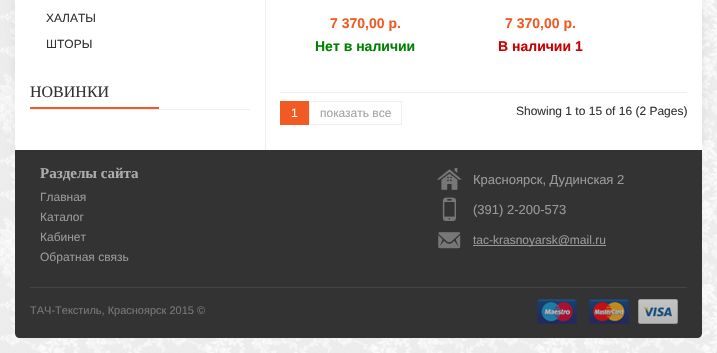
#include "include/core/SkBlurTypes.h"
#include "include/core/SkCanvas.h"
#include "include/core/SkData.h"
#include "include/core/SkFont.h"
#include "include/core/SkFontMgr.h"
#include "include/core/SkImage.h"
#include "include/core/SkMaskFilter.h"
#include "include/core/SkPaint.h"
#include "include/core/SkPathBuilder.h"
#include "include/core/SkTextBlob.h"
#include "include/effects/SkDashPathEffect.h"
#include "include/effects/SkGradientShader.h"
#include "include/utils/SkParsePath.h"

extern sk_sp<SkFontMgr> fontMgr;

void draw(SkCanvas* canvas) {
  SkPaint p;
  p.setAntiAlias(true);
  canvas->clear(SK_ColorWHITE);
  canvas->drawImageRect(SkImages::DeferredFromEncodedData(SkData::MakeFromFileName("images/1.png")), SkRect::MakeLTRB(0, 0, 717, 353), SkSamplingOptions());
  p.setColor(SkColorSetARGB(20, 0, 0, 0));
  p.setMaskFilter(SkMaskFilter::MakeBlur(kNormal_SkBlurStyle, 4));
  canvas->drawRoundRect(SkRect::MakeLTRB(15, -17, 702, 150), 5, 5, p);
  p.setMaskFilter(nullptr);
  p.setColor(SK_ColorWHITE);
  canvas->drawRect(SkRect::MakeLTRB(15, 0, 702, 150), p);
  p.setColor(SkColorSetRGB(238, 238, 238));
  canvas->drawRect(SkRect::MakeLTRB(265, 0, 266, 150), p);
  canvas->drawRect(SkRect::MakeLTRB(30, 109, 250, 110), p);
  p.setColor(SkColorSetRGB(241, 90, 35));
  canvas->drawRect(SkRect::MakeLTRB(30, 107, 159, 109), p);
  p.setColor(SkColorSetRGB(238, 238, 238));
  canvas->drawRect(SkRect::MakeLTRB(280, 92, 687, 93), p);
  p.setColor(SkColorSetRGB(241, 90, 35));
  canvas->drawRect(SkRect::MakeLTRB(280, 101, 309, 125), p);
  p.setStyle(SkPaint::kStroke_Style);
  p.setStrokeWidth(1);
  p.setColor(SkColorSetRGB(238, 238, 238));
  canvas->drawRect(SkRect::MakeLTRB(309.5f, 101.5f, 401.5f, 124.5f), p);
  p.setStyle(SkPaint::kFill_Style);
  p.setColor(SkColorSetRGB(51, 51, 51));
  canvas->drawPath(SkPathBuilder().moveTo(15, 150).lineTo(702, 150).lineTo(702, 333).cubicTo(702, 336, 700, 338, 697, 338).lineTo(20, 338).cubicTo(17, 338, 15, 336, 15, 333).close().detach(), p);
  canvas->drawImageRect(SkImages::DeferredFromEncodedData(SkData::MakeFromFileName("images/2.png")), SkRect::MakeLTRB(437, 168, 462, 190), SkSamplingOptions());
  canvas->drawImageRect(SkImages::DeferredFromEncodedData(SkData::MakeFromFileName("images/3.png")), SkRect::MakeLTRB(442, 197, 456, 221), SkSamplingOptions());
  canvas->drawImageRect(SkImages::DeferredFromEncodedData(SkData::MakeFromFileName("images/4.png")), SkRect::MakeLTRB(438, 232, 461, 249), SkSamplingOptions());
  p.setColor(SkColorSetRGB(153, 153, 153));
  canvas->drawRect(SkRect::MakeLTRB(473, 245, 606, 246), p);
  p.setColor(SkColorSetRGB(68, 68, 68));
  canvas->drawRect(SkRect::MakeLTRB(30, 287, 687, 288), p);
  canvas->drawImageRect(SkImages::DeferredFromEncodedData(SkData::MakeFromFileName("images/5.png")), SkRect::MakeLTRB(537, 299, 577, 324), SkSamplingOptions());
  canvas->drawImageRect(SkImages::DeferredFromEncodedData(SkData::MakeFromFileName("images/6.png")), SkRect::MakeLTRB(589, 299, 629, 324), SkSamplingOptions());
  canvas->drawImageRect(SkImages::DeferredFromEncodedData(SkData::MakeFromFileName("images/7.png")), SkRect::MakeLTRB(638, 299, 678, 324), SkSamplingOptions());
  SkFont font1(fontMgr->matchFamilyStyle("Liberation Sans", SkFontStyle::Normal()), 12);
  font1.setSubpixel(true);
  p.setColor(SkColorSetRGB(51, 51, 51));
  canvas->drawString("ХАЛАТЫ", 46, 22, font1, p);
  canvas->drawString("ШТОРЫ", 46, 48, font1, p);
  SkFont font2(fontMgr->matchFamilyStyle("Liberation Serif", SkFontStyle::Normal()), 16);
  font2.setSubpixel(true);
  canvas->drawString("НОВИНКИ", 30, 97, font2, p);
  SkFont font3(fontMgr->matchFamilyStyle("Liberation Sans", SkFontStyle::Bold()), 14);
  font3.setSubpixel(true);
  p.setColor(SkColorSetRGB(241, 90, 35));
  canvas->drawString("7 370,00 р.", 330, 28, font3, p);
  p.setColor(SkColorSetRGB(0, 128, 0));
  canvas->drawString("Нет в наличии", 315, 51, font3, p);
  p.setColor(SkColorSetRGB(241, 90, 35));
  canvas->drawString("7 370,00 р.", 505, 28, font3, p);
  p.setColor(SkColorSetRGB(204, 0, 0));
  canvas->drawString("В наличии 1", 498, 51, font3, p);
  p.setColor(SK_ColorWHITE);
  canvas->drawString("1", 291, 117, font1, p);
  p.setColor(SkColorSetRGB(163, 163, 163));
  canvas->drawString("показать все", 320, 117, font1, p);
  p.setColor(SkColorSetRGB(51, 51, 51));
  canvas->drawString("Showing 1 to 15 of 16 (2 Pages)", 516, 115, font1, p);
  SkFont font4(fontMgr->matchFamilyStyle("Liberation Serif", SkFontStyle::Bold()), 15);
  font4.setSubpixel(true);
  p.setColor(SkColorSetRGB(172, 172, 172));
  canvas->drawString("Разделы сайта", 40, 178, font4, p);
  p.setColor(SkColorSetRGB(153, 153, 153));
  canvas->drawString("Главная", 40, 201, font1, p);
  canvas->drawString("Каталог", 40, 221, font1, p);
  canvas->drawString("Кабинет", 40, 241, font1, p);
  canvas->drawString("Обратная связь", 40, 261, font1, p);
  SkFont font5(fontMgr->matchFamilyStyle("Liberation Sans", SkFontStyle::Normal()), 13);
  font5.setSubpixel(true);
  canvas->drawString("Красноярск, Дудинская 2", 473, 184, font5, p);
  canvas->drawString("(391) 2-200-573", 473, 214, font5, p);
  canvas->drawString("tac-krasnoyarsk@mail.ru", 473, 244, font1, p);
  SkFont font6(fontMgr->matchFamilyStyle("Liberation Sans", SkFontStyle::Normal()), 11);
  font6.setSubpixel(true);
  p.setColor(SkColorSetRGB(119, 119, 119));
  canvas->drawString("ТАЧ-Текстиль, Красноярск 2015 ©", 30, 314, font6, p);
}
